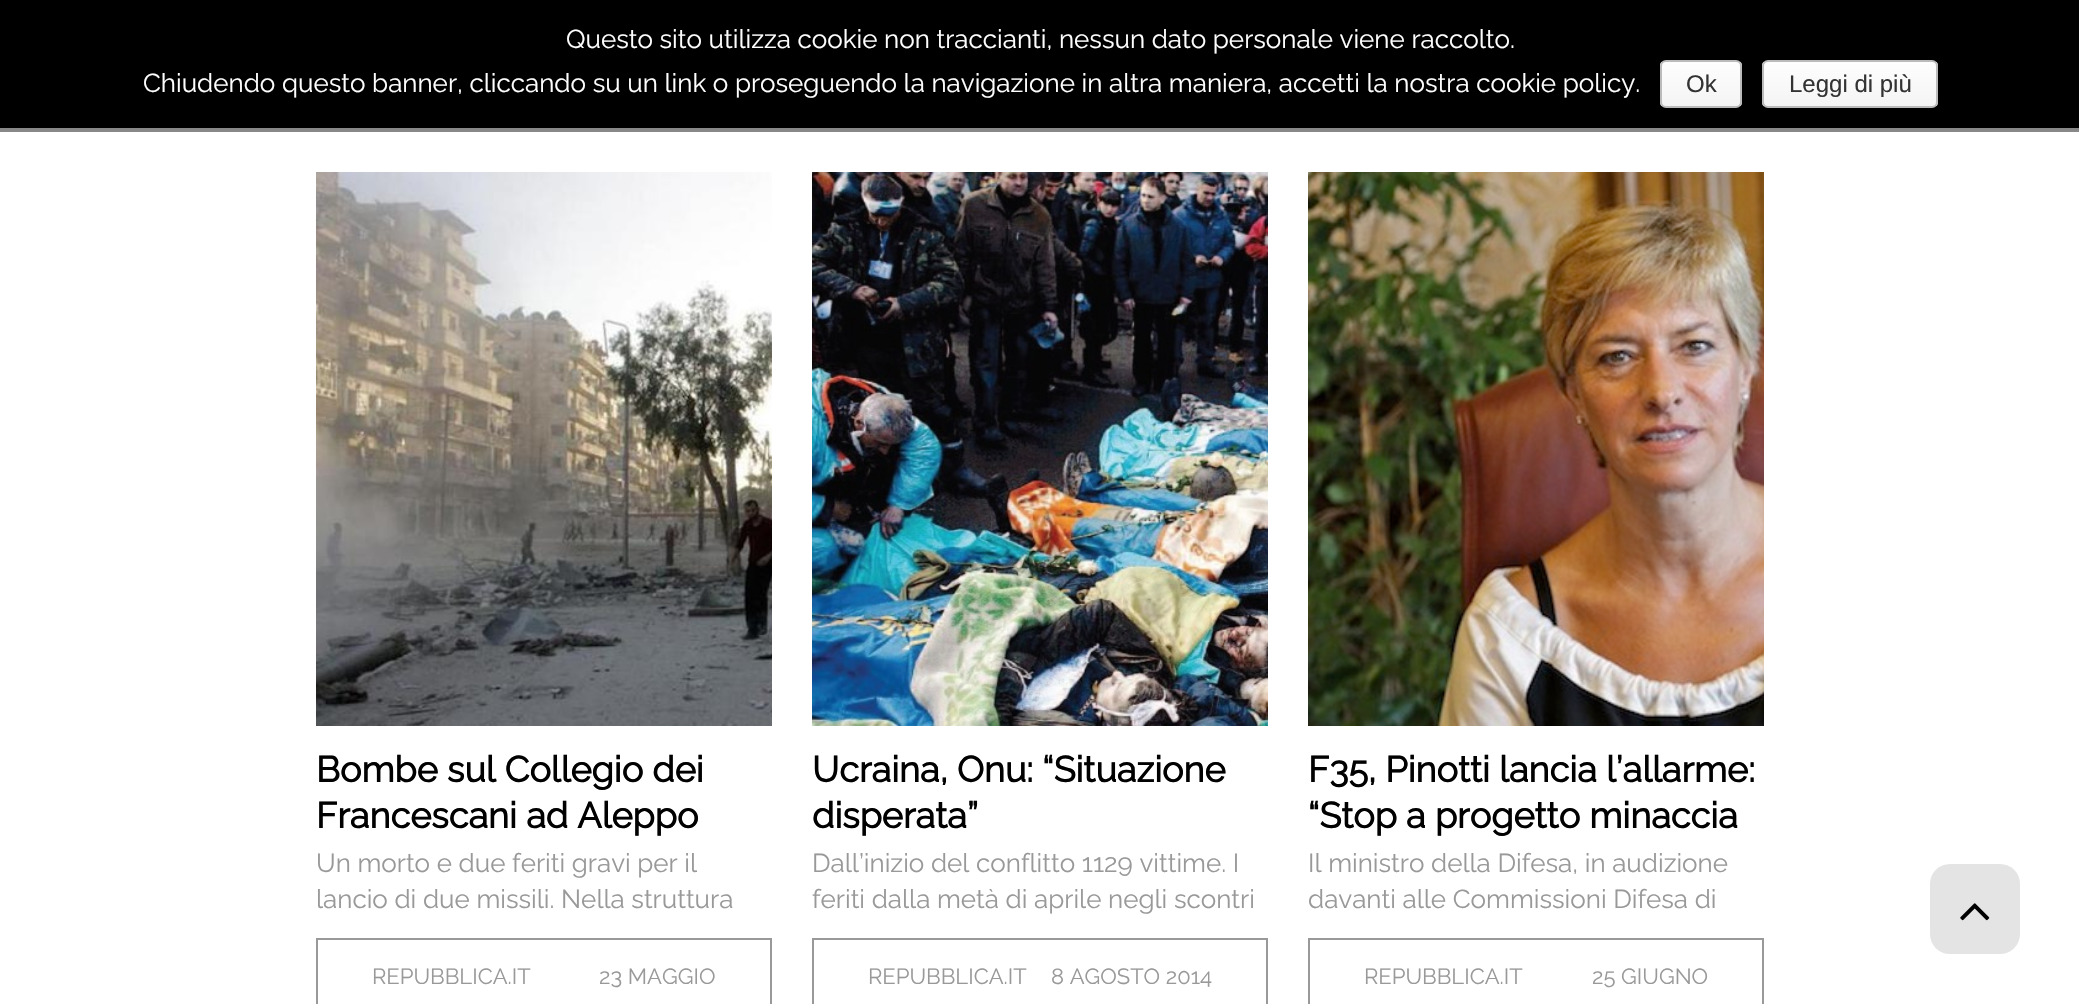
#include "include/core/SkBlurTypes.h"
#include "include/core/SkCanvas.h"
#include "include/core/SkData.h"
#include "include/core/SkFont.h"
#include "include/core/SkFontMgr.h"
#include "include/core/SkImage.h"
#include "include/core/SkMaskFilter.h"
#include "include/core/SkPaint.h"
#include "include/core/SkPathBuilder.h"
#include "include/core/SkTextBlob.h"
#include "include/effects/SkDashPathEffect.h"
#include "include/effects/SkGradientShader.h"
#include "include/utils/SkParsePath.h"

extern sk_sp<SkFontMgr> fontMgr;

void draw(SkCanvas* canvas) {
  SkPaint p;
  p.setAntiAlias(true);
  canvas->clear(SK_ColorWHITE);
  p.setColor(SK_ColorBLACK);
  canvas->drawRect(SkRect::MakeLTRB(0, 0, 2079, 128), p);
  canvas->save();
  canvas->clipPath(SkPathBuilder().moveTo(1666, 60).lineTo(1736, 60).cubicTo(1739.5f, 60, 1742, 62.5f, 1742, 66).lineTo(1742, 102).cubicTo(1742, 105.5f, 1739.5f, 108, 1736, 108).lineTo(1666, 108).cubicTo(1662.5f, 108, 1660, 105.5f, 1660, 102).lineTo(1660, 66).cubicTo(1660, 62.5f, 1662.5f, 60, 1666, 60).close().detach(), true);
  {
    const SkColor colors[] = {SkColorSetRGB(254, 254, 254), SkColorSetRGB(244, 244, 244)};
    const float stops[] = {0, 1};
    const SkPoint ends[] = {{1701, 62}, {1701, 106}};
    p.setShader(SkGradientShader::MakeLinear(ends, colors, stops, 2, SkTileMode::kClamp));
    p.setAlpha(255);
  }
  canvas->drawRect(SkRect::MakeLTRB(1660, 62, 1742, 106), p);
  canvas->restore();
  p.setStyle(SkPaint::kStroke_Style);
  p.setStrokeWidth(2);
  p.setShader(nullptr);
  p.setColor(SkColorSetRGB(187, 187, 187));
  canvas->drawRoundRect(SkRect::MakeLTRB(1661, 61, 1741, 107), 5, 5, p);
  canvas->save();
  canvas->clipPath(SkPathBuilder().moveTo(1768, 60).lineTo(1932, 60).cubicTo(1935.5f, 60, 1938, 62.5f, 1938, 66).lineTo(1938, 102).cubicTo(1938, 105.5f, 1935.5f, 108, 1932, 108).lineTo(1768, 108).cubicTo(1764.5f, 108, 1762, 105.5f, 1762, 102).lineTo(1762, 66).cubicTo(1762, 62.5f, 1764.5f, 60, 1768, 60).close().detach(), true);
  p.setStyle(SkPaint::kFill_Style);
  {
    const SkColor colors[] = {SkColorSetRGB(254, 254, 254), SkColorSetRGB(244, 244, 244)};
    const float stops[] = {0, 1};
    const SkPoint ends[] = {{1850, 62}, {1850, 106}};
    p.setShader(SkGradientShader::MakeLinear(ends, colors, stops, 2, SkTileMode::kClamp));
    p.setAlpha(255);
  }
  canvas->drawRect(SkRect::MakeLTRB(1762, 62, 1938, 106), p);
  canvas->restore();
  p.setStyle(SkPaint::kStroke_Style);
  p.setShader(nullptr);
  p.setColor(SkColorSetRGB(187, 187, 187));
  canvas->drawRoundRect(SkRect::MakeLTRB(1763, 61, 1937, 107), 5, 5, p);
  p.setStyle(SkPaint::kFill_Style);
  p.setColor(SkColorSetRGB(136, 136, 136));
  canvas->drawRect(SkRect::MakeLTRB(0, 128, 2079, 132), p);
  canvas->drawImageRect(SkImages::DeferredFromEncodedData(SkData::MakeFromFileName("images/1.png")), SkRect::MakeLTRB(316, 172, 772, 726), SkSamplingOptions());
  p.setStyle(SkPaint::kStroke_Style);
  p.setColor(SkColorSetRGB(153, 153, 153));
  canvas->drawRect(SkRect::MakeLTRB(317, 939, 771, 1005), p);
  canvas->drawImageRect(SkImages::DeferredFromEncodedData(SkData::MakeFromFileName("images/2.png")), SkRect::MakeLTRB(812, 172, 1268, 726), SkSamplingOptions());
  canvas->drawRect(SkRect::MakeLTRB(813, 939, 1267, 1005), p);
  canvas->drawImageRect(SkImages::DeferredFromEncodedData(SkData::MakeFromFileName("images/3.png")), SkRect::MakeLTRB(1308, 172, 1764, 726), SkSamplingOptions());
  canvas->drawRect(SkRect::MakeLTRB(1309, 939, 1763, 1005), p);
  p.setStyle(SkPaint::kFill_Style);
  p.setColor(SkColorSetRGB(228, 228, 228));
  canvas->drawRoundRect(SkRect::MakeLTRB(1930, 864, 2020, 954), 20, 20, p);
  canvas->drawImageRect(SkImages::DeferredFromEncodedData(SkData::MakeFromFileName("images/4.png")), SkRect::MakeLTRB(1960, 903, 1990, 921), SkSamplingOptions());
  SkFont font1(fontMgr->matchFamilyStyle("Raleway", SkFontStyle(100, SkFontStyle::kNormal_Width, SkFontStyle::kUpright_Slant)), 26);
  font1.setSubpixel(true);
  p.setColor(SK_ColorWHITE);
  canvas->drawString("Questo sito utilizza cookie non traccianti, nessun dato personale viene raccolto.", 566, 48, font1, p);
  canvas->drawString("Chiudendo questo banner, cliccando su un link o proseguendo la navigazione in altra maniera, accetti la nostra cookie policy.", 143, 92, font1, p);
  SkFont font2(fontMgr->matchFamilyStyle("Liberation Sans", SkFontStyle::Normal()), 24);
  font2.setSubpixel(true);
  p.setColor(SkColorSetRGB(51, 51, 51));
  canvas->drawString("Ok", 1686, 92, font2, p);
  canvas->drawString("Leggi di più", 1789, 92, font2, p);
  SkFont font3(fontMgr->matchFamilyStyle("Raleway", SkFontStyle::Bold()), 36);
  font3.setSubpixel(true);
  p.setColor(SK_ColorBLACK);
  canvas->drawString("Bombe sul Collegio dei", 316, 782, font3, p);
  canvas->drawString("Francescani ad Aleppo", 316, 828, font3, p);
  p.setColor(SkColorSetRGB(153, 153, 153));
  canvas->drawString("Un morto e due feriti gravi per il", 316, 872, font1, p);
  canvas->drawString("lancio di due missili. Nella struttura", 316, 908, font1, p);
  SkFont font4(fontMgr->matchFamilyStyle("Raleway", SkFontStyle(100, SkFontStyle::kNormal_Width, SkFontStyle::kUpright_Slant)), 22);
  font4.setSubpixel(true);
  canvas->drawString("REPUBBLICA.IT", 372, 984, font4, p);
  canvas->drawString("23 MAGGIO", 599, 984, font4, p);
  p.setColor(SK_ColorBLACK);
  canvas->drawString("Ucraina, Onu: “Situazione", 812, 782, font3, p);
  canvas->drawString("disperata”", 812, 828, font3, p);
  p.setColor(SkColorSetRGB(153, 153, 153));
  canvas->drawString("Dall’inizio del conflitto 1129 vittime. I", 812, 872, font1, p);
  canvas->drawString("feriti dalla metà di aprile negli scontri", 812, 908, font1, p);
  canvas->drawString("REPUBBLICA.IT", 868, 984, font4, p);
  canvas->drawString("8 AGOSTO 2014", 1051, 984, font4, p);
  p.setColor(SK_ColorBLACK);
  canvas->drawString("F35, Pinotti lancia l’allarme:", 1308, 782, font3, p);
  canvas->drawString("“Stop a progetto minaccia", 1308, 828, font3, p);
  p.setColor(SkColorSetRGB(153, 153, 153));
  canvas->drawString("Il ministro della Difesa, in audizione", 1308, 872, font1, p);
  canvas->drawString("davanti alle Commissioni Difesa di", 1308, 908, font1, p);
  canvas->drawString("REPUBBLICA.IT", 1364, 984, font4, p);
  canvas->drawString("25 GIUGNO", 1592, 984, font4, p);
}
